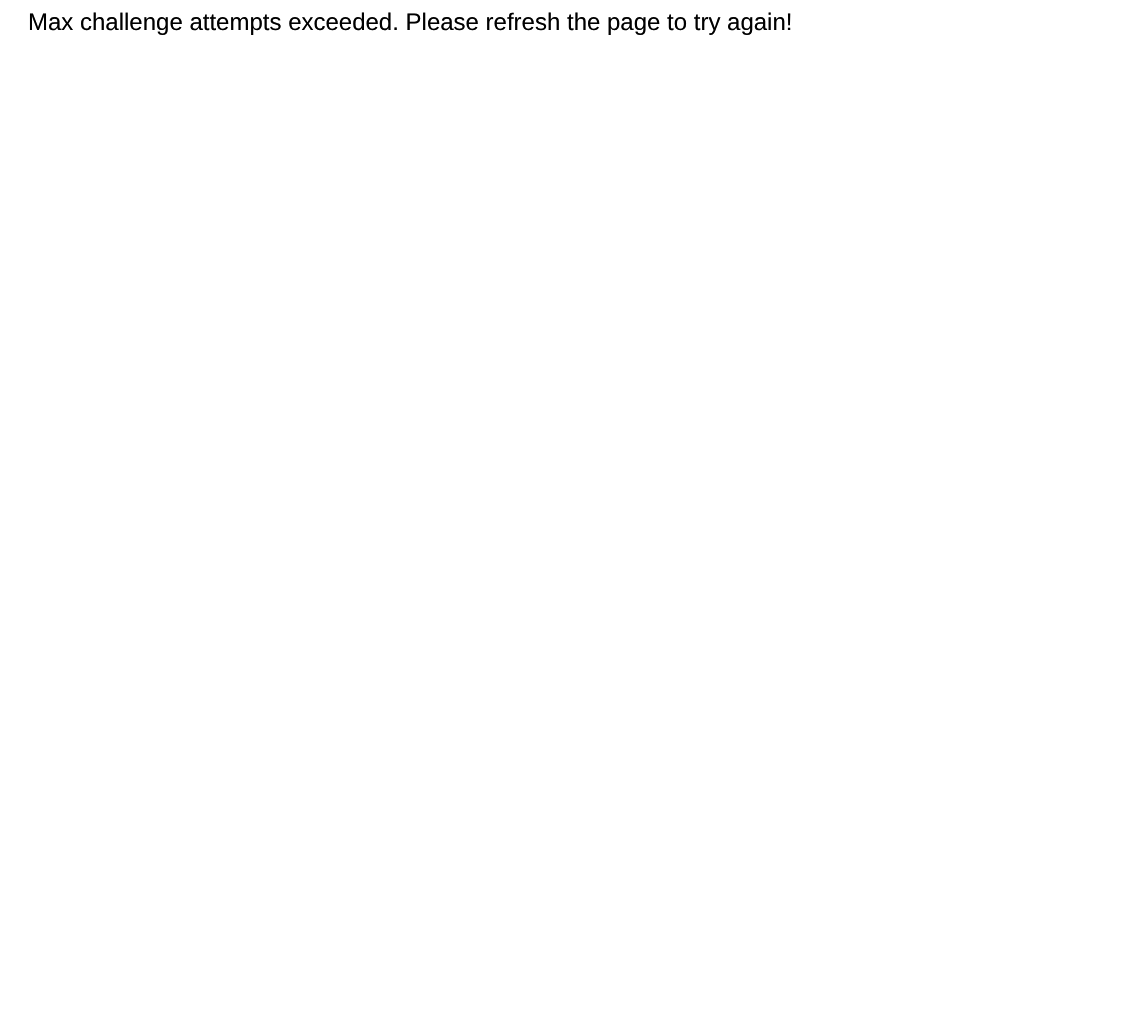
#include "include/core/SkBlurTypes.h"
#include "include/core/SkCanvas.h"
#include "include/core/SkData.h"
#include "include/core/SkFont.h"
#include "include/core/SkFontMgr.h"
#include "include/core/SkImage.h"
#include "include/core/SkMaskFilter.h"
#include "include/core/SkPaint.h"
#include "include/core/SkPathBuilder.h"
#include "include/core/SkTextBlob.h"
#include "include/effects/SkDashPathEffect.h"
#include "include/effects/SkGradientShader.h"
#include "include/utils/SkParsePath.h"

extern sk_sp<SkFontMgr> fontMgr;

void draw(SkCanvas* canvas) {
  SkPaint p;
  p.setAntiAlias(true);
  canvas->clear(SK_ColorWHITE);
  SkFont font1(fontMgr->matchFamilyStyle("Liberation Sans", SkFontStyle::Normal()), 24);
  font1.setSubpixel(true);
  p.setColor(SK_ColorBLACK);
  canvas->drawString("Max challenge attempts exceeded. Please refresh the page to try again!", 28, 30, font1, p);
}
